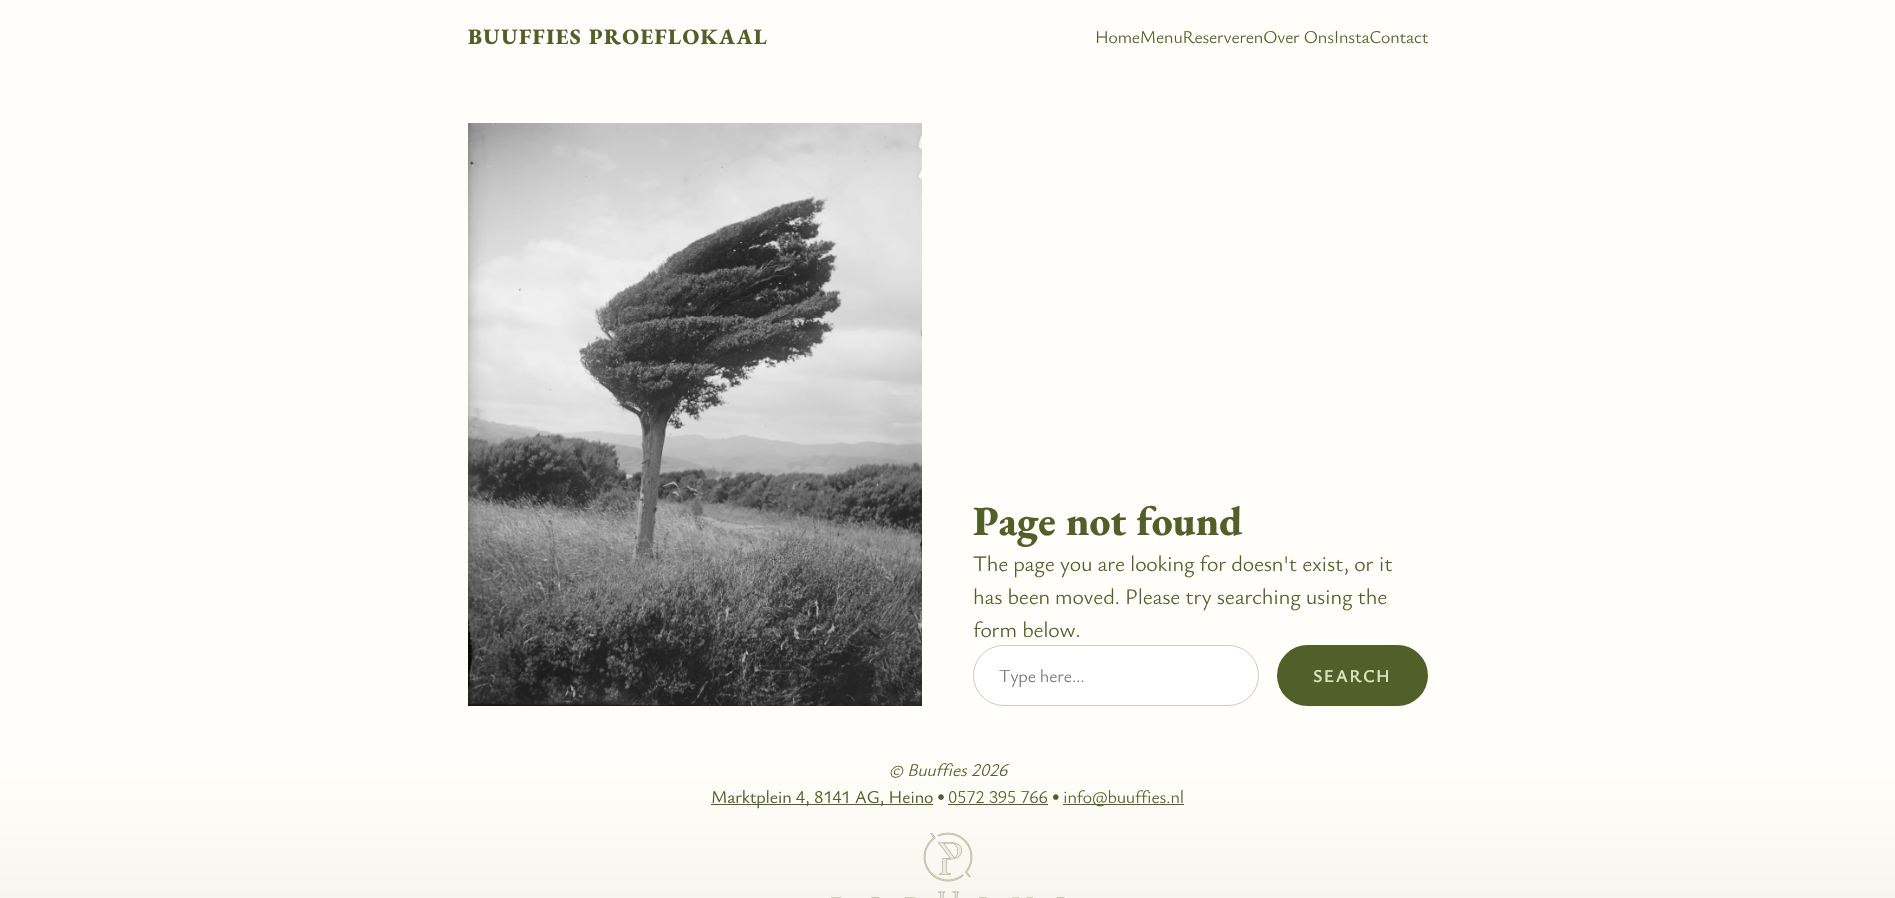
#include "include/core/SkBlurTypes.h"
#include "include/core/SkCanvas.h"
#include "include/core/SkData.h"
#include "include/core/SkFont.h"
#include "include/core/SkFontMgr.h"
#include "include/core/SkImage.h"
#include "include/core/SkMaskFilter.h"
#include "include/core/SkPaint.h"
#include "include/core/SkPathBuilder.h"
#include "include/core/SkTextBlob.h"
#include "include/effects/SkDashPathEffect.h"
#include "include/effects/SkGradientShader.h"
#include "include/utils/SkParsePath.h"

extern sk_sp<SkFontMgr> fontMgr;

void draw(SkCanvas* canvas) {
  SkPaint p;
  p.setAntiAlias(true);
  auto spacedText = [&](const char* s, float x, float y, const SkFont& font, const SkPaint& ink, float letter, float word) {
    std::vector<SkGlyphID> glyphs(font.countText(s, strlen(s), SkTextEncoding::kUTF8));
    std::vector<float> xs(glyphs.size());
    font.textToGlyphs(s, strlen(s), SkTextEncoding::kUTF8, glyphs);
    font.getXPos(glyphs, xs, x);
    float extra = 0;
    for (size_t i = 0; i < glyphs.size(); i++) {
      xs[i] += extra;
      extra += letter + word * (glyphs[i] == font.unicharToGlyph(' '));
    }
    canvas->drawTextBlob(SkTextBlob::MakeFromPosHGlyphs(glyphs, xs, y, font), 0, 0, ink);
  };
  canvas->clear(SkColorSetRGB(255, 254, 250));
  canvas->drawImageRect(SkImages::DeferredFromEncodedData(SkData::MakeFromFileName("images/1.png")), SkRect::MakeLTRB(468, 123, 922, 706), SkSamplingOptions());
  p.setColor(SK_ColorWHITE);
  canvas->drawRoundRect(SkRect::MakeLTRB(973, 645, 1259, 706), 30.5f, 30.5f, p);
  p.setStyle(SkPaint::kStroke_Style);
  p.setStrokeWidth(1);
  p.setColor(SkColorSetARGB(51, 0, 0, 0));
  canvas->drawRoundRect(SkRect::MakeLTRB(973.5f, 645.5f, 1258.5f, 705.5f), 30, 30, p);
  p.setStyle(SkPaint::kFill_Style);
  p.setColor(SkColorSetRGB(81, 96, 40));
  canvas->drawRoundRect(SkRect::MakeLTRB(1277, 645, 1428, 706), 30.5f, 30.5f, p);
  {
    const SkColor colors[] = {SkColorSetRGB(255, 255, 249), SkColorSetRGB(243, 239, 233)};
    const float stops[] = {0, 1};
    const SkPoint ends[] = {{948, 756}, {948, 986}};
    p.setShader(SkGradientShader::MakeLinear(ends, colors, stops, 2, SkTileMode::kClamp));
    p.setAlpha(255);
  }
  canvas->drawRect(SkRect::MakeLTRB(0, 778, 1895, 898), p);
  p.setShader(nullptr);
  p.setColor(SkColorSetRGB(81, 96, 40));
  canvas->drawRect(SkRect::MakeLTRB(711, 804, 933, 805), p);
  canvas->drawRect(SkRect::MakeLTRB(948, 804, 1048, 805), p);
  canvas->drawRect(SkRect::MakeLTRB(1063, 804, 1184, 805), p);
  canvas->drawImageRect(SkImages::DeferredFromEncodedData(SkData::MakeFromFileName("images/2.png")), SkRect::MakeLTRB(830, 832, 1065, 898), SkSamplingOptions());
  SkFont font1(fontMgr->matchFamilyStyle("EB Garamond", SkFontStyle(800, SkFontStyle::kNormal_Width, SkFontStyle::kUpright_Slant)), 22);
  font1.setSubpixel(true);
  spacedText("BUUFFIES PROEFLOKAAL", 468, 44, font1, p, 1.4f, 0);
  SkFont font2(fontMgr->matchFamilyStyle("Ysabeau Office", SkFontStyle(300, SkFontStyle::kNormal_Width, SkFontStyle::kUpright_Slant)), 18);
  font2.setSubpixel(true);
  spacedText("HomeMenuReserverenOver OnsInstaContact", 1095, 43, font2, p, -0.2f, 0);
  SkFont font3(fontMgr->matchFamilyStyle("EB Garamond", SkFontStyle(800, SkFontStyle::kNormal_Width, SkFontStyle::kUpright_Slant)), 41.5f);
  font3.setSubpixel(true);
  spacedText("Page not found", 973, 535, font3, p, -0.1f, 0);
  SkFont font4(fontMgr->matchFamilyStyle("Ysabeau Office", SkFontStyle(300, SkFontStyle::kNormal_Width, SkFontStyle::kUpright_Slant)), 22);
  font4.setSubpixel(true);
  spacedText("The page you are looking for doesn't exist, or it", 973, 571, font4, p, -0.2f, 0);
  spacedText("has been moved. Please try searching using the", 973, 604, font4, p, -0.2f, 0);
  spacedText("form below.", 973, 637, font4, p, -0.2f, 0);
  canvas->save();
  canvas->clipRect(SkRect::MakeLTRB(999, 663, 1217, 687));
  p.setColor(SkColorSetRGB(117, 117, 117));
  spacedText("Type here...", 999, 682, font2, p, -0.2f, 0);
  canvas->restore();
  SkFont font5(fontMgr->matchFamilyStyle("Ysabeau Office", SkFontStyle(600, SkFontStyle::kNormal_Width, SkFontStyle::kUpright_Slant)), 18);
  font5.setSubpixel(true);
  p.setColor(SkColorSetRGB(218, 231, 189));
  spacedText("SEARCH", 1313, 682, font5, p, 1.4f, 0);
  SkFont font6(fontMgr->matchFamilyStyle("Ysabeau Office", SkFontStyle(300, SkFontStyle::kNormal_Width, SkFontStyle::kItalic_Slant)), 18);
  font6.setSubpixel(true);
  p.setColor(SkColorSetRGB(81, 96, 40));
  spacedText("© Buuffies 2026", 889, 776, font6, p, -0.2f, 0);
  SkFont font7(fontMgr->matchFamilyStyle("Ysabeau Office", SkFontStyle::Normal()), 18);
  font7.setSubpixel(true);
  spacedText("Marktplein 4, 8141 AG, Heino •", 711, 803, font7, p, -0.2f, 0);
  spacedText("0572 395 766", 948, 803, font2, p, -0.2f, 0);
  spacedText("•", 1052, 803, font7, p, -0.2f, 0);
  spacedText("info@buuffies.nl", 1063, 803, font2, p, -0.2f, 0);
}
